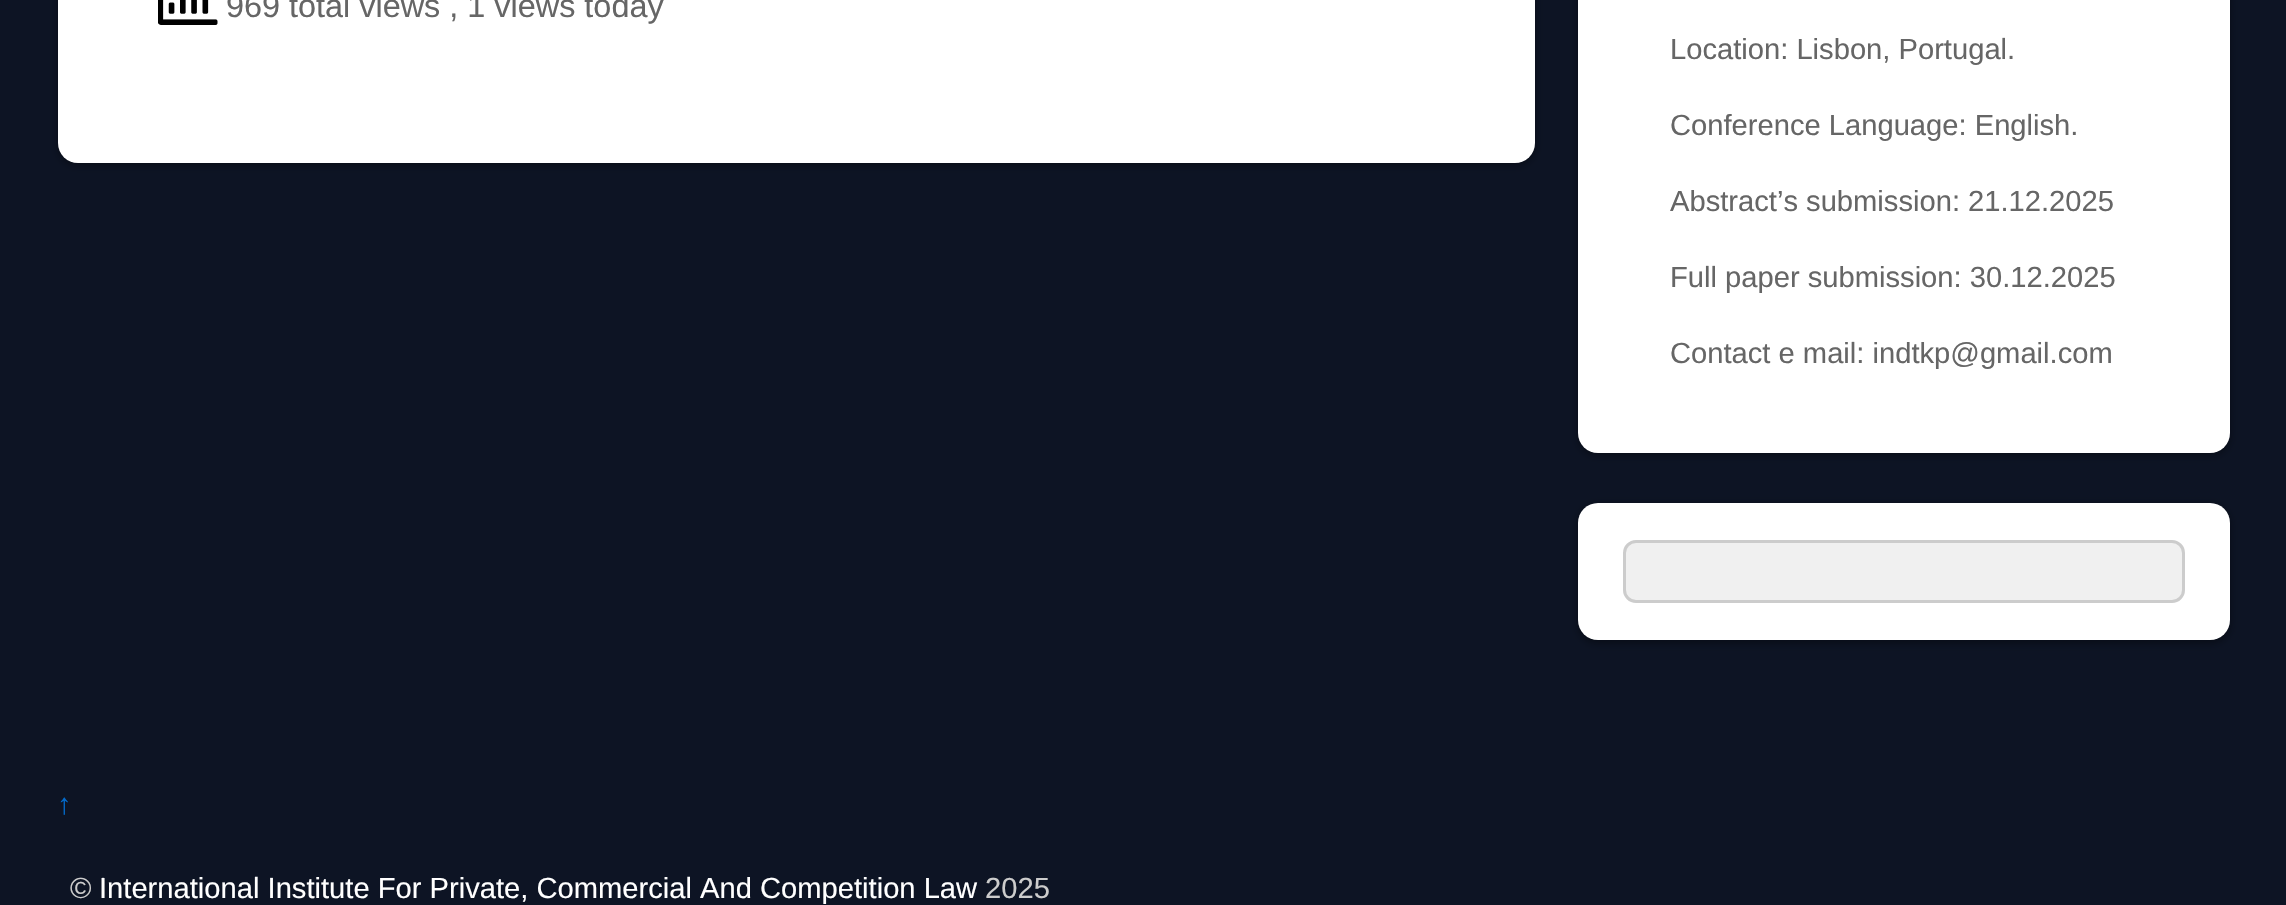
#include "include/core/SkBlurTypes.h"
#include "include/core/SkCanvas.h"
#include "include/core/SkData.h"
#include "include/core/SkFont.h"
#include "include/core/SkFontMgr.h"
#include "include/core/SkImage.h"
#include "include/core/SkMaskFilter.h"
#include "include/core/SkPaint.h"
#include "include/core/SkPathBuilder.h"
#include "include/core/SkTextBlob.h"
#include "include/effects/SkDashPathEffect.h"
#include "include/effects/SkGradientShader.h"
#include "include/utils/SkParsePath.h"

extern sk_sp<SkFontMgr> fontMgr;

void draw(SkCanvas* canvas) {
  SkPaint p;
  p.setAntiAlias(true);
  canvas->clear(SkColorSetRGB(13, 20, 36));
  p.setColor(SkColorSetARGB(102, 0, 0, 0));
  p.setMaskFilter(SkMaskFilter::MakeBlur(kNormal_SkBlurStyle, 4));
  canvas->drawRoundRect(SkRect::MakeLTRB(58, -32, 1535, 165), 20, 20, p);
  p.setMaskFilter(nullptr);
  p.setColor(SK_ColorWHITE);
  canvas->drawRoundRect(SkRect::MakeLTRB(58, -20, 1535, 163), 20, 20, p);
  canvas->drawImageRect(SkImages::DeferredFromEncodedData(SkData::MakeFromFileName("images/1.png")), SkRect::MakeLTRB(158, 0, 218, 25), SkSamplingOptions());
  p.setColor(SkColorSetARGB(102, 0, 0, 0));
  p.setMaskFilter(SkMaskFilter::MakeBlur(kNormal_SkBlurStyle, 4));
  canvas->drawRoundRect(SkRect::MakeLTRB(1578, -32, 2230, 455), 20, 20, p);
  p.setMaskFilter(nullptr);
  p.setColor(SK_ColorWHITE);
  canvas->drawRoundRect(SkRect::MakeLTRB(1578, -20, 2230, 453), 20, 20, p);
  p.setColor(SkColorSetARGB(102, 0, 0, 0));
  p.setMaskFilter(SkMaskFilter::MakeBlur(kNormal_SkBlurStyle, 4));
  canvas->drawRoundRect(SkRect::MakeLTRB(1578, 505, 2230, 643), 20, 20, p);
  p.setMaskFilter(nullptr);
  p.setColor(SK_ColorWHITE);
  canvas->drawRoundRect(SkRect::MakeLTRB(1578, 503, 2230, 640), 20, 20, p);
  p.setColor(SkColorSetRGB(240, 240, 240));
  canvas->drawRoundRect(SkRect::MakeLTRB(1624.5f, 541.5f, 2183.5f, 601.5f), 11.5f, 11.5f, p);
  p.setStyle(SkPaint::kStroke_Style);
  p.setStrokeWidth(3);
  p.setColor(SkColorSetRGB(204, 204, 204));
  canvas->drawRoundRect(SkRect::MakeLTRB(1624.5f, 541.5f, 2183.5f, 601.5f), 11.5f, 11.5f, p);
  SkFont font1(fontMgr->matchFamilyStyle("Liberation Sans", SkFontStyle::Normal()), 32.4f);
  font1.setSubpixel(true);
  p.setStyle(SkPaint::kFill_Style);
  p.setColor(SkColorSetRGB(102, 102, 102));
  canvas->drawString("969 total views , 1 views today", 226, 17, font1, p);
  SkFont font2(fontMgr->matchFamilyStyle("Liberation Sans", SkFontStyle::Normal()), 29.15f);
  font2.setSubpixel(true);
  canvas->drawString("Location: Lisbon, Portugal.", 1670, 59, font2, p);
  canvas->drawString("Conference Language: English.", 1670, 135, font2, p);
  canvas->drawString("Abstract’s submission: 21.12.2025", 1670, 211, font2, p);
  canvas->drawString("Full paper submission: 30.12.2025", 1670, 287, font2, p);
  canvas->drawString("Contact e mail: indtkp@gmail.com", 1670, 363, font2, p);
  p.setColor(SkColorSetRGB(2, 106, 203));
  canvas->drawString("↑", 57, 814, font2, p);
  p.setColor(SkColorSetRGB(204, 204, 204));
  canvas->drawString("©", 70, 898, font2, p);
  p.setColor(SK_ColorWHITE);
  canvas->drawString("International Institute For Private, Commercial And Competition Law", 99, 898, font2, p);
  p.setColor(SkColorSetRGB(204, 204, 204));
  canvas->drawString("2025", 985, 898, font2, p);
}
